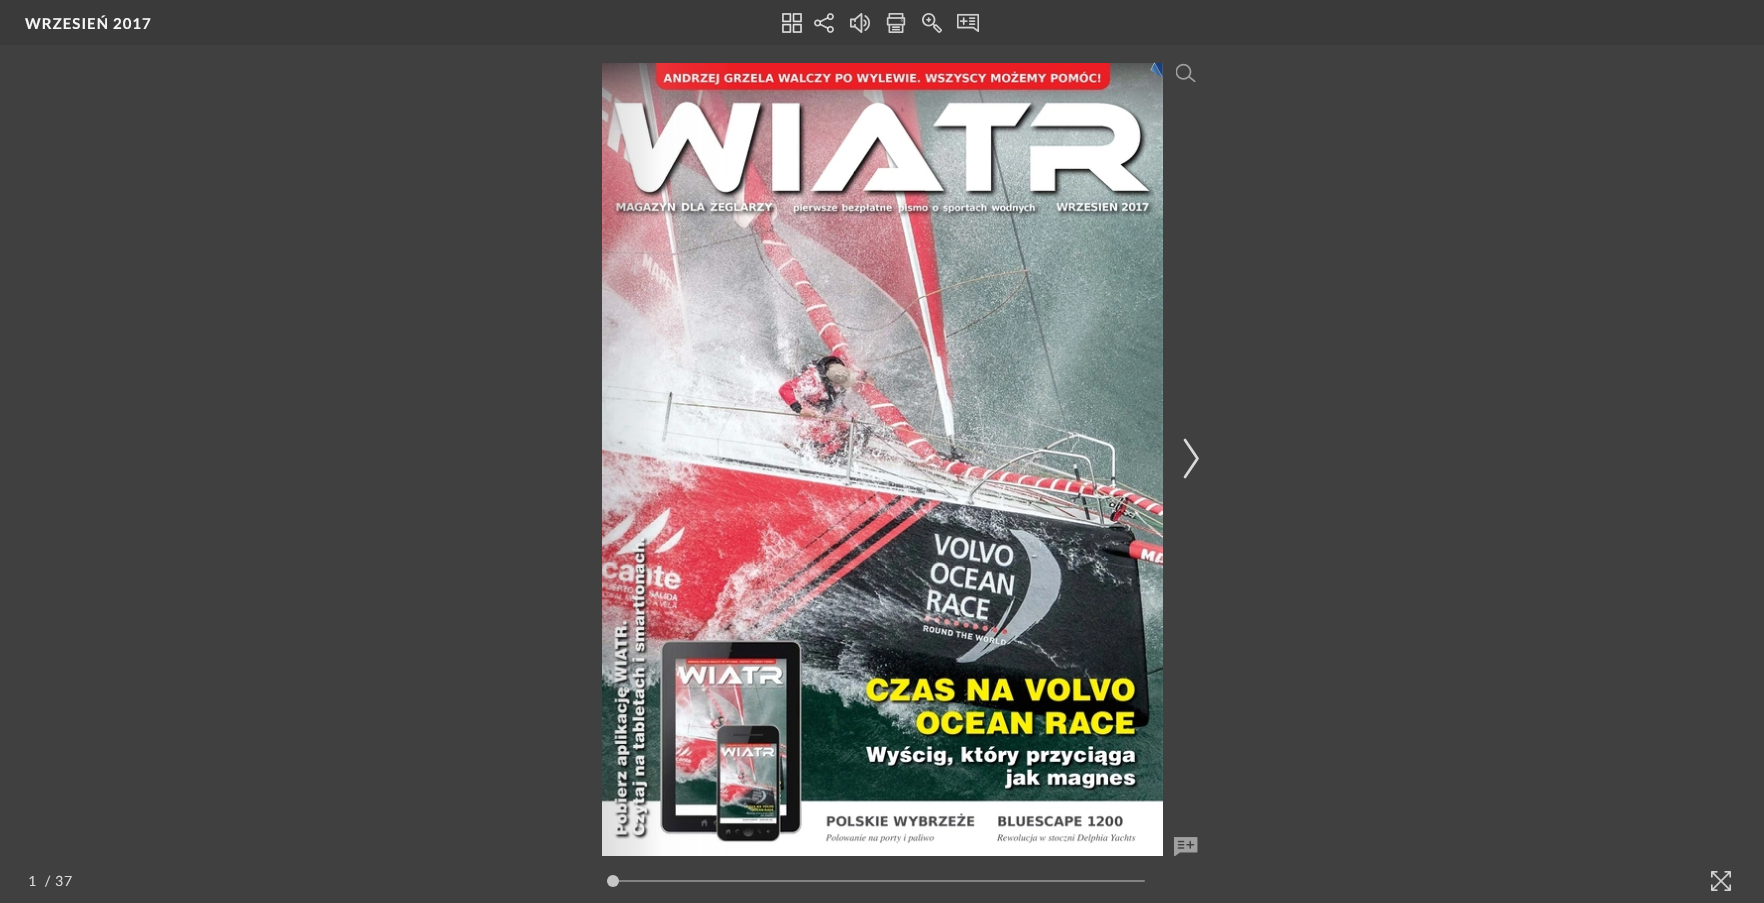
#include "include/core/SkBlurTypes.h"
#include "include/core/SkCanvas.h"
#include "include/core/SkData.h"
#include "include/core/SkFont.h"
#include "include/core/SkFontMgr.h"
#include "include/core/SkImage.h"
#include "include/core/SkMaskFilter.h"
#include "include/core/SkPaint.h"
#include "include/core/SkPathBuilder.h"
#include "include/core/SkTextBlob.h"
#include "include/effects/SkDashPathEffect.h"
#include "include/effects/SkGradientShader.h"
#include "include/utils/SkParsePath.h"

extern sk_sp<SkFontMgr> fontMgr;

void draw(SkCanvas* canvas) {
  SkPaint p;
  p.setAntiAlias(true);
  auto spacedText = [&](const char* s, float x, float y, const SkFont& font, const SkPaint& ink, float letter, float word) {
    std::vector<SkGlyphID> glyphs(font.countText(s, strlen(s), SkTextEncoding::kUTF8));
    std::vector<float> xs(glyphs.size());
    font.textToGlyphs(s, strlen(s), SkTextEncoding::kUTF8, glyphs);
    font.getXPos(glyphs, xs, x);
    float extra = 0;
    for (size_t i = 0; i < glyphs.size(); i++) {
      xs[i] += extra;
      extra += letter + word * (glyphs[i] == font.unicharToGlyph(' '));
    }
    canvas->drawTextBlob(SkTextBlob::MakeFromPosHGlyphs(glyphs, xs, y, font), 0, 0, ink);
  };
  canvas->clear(SkColorSetRGB(64, 64, 64));
  p.setColor(SkColorSetRGB(58, 58, 58));
  canvas->drawRect(SkRect::MakeLTRB(0, 0, 1764, 45), p);
  canvas->drawImageRect(SkImages::DeferredFromEncodedData(SkData::MakeFromFileName("images/1.png")), SkRect::MakeLTRB(782, 13, 802, 33), SkSamplingOptions());
  canvas->drawImageRect(SkImages::DeferredFromEncodedData(SkData::MakeFromFileName("images/2.png")), SkRect::MakeLTRB(814, 13, 834, 33), SkSamplingOptions());
  canvas->drawImageRect(SkImages::DeferredFromEncodedData(SkData::MakeFromFileName("images/3.png")), SkRect::MakeLTRB(850, 13, 870, 33), SkSamplingOptions());
  canvas->drawImageRect(SkImages::DeferredFromEncodedData(SkData::MakeFromFileName("images/4.png")), SkRect::MakeLTRB(886, 13, 906, 33), SkSamplingOptions());
  canvas->drawImageRect(SkImages::DeferredFromEncodedData(SkData::MakeFromFileName("images/5.png")), SkRect::MakeLTRB(922, 13, 942, 33), SkSamplingOptions());
  canvas->drawImageRect(SkImages::DeferredFromEncodedData(SkData::MakeFromFileName("images/6.png")), SkRect::MakeLTRB(957, 13, 979, 32), SkSamplingOptions());
  p.setColor(SK_ColorWHITE);
  canvas->drawRect(SkRect::MakeLTRB(602, 63, 1163, 856), p);
  canvas->drawImageRect(SkImages::DeferredFromEncodedData(SkData::MakeFromFileName("images/9.png")), SkRect::MakeLTRB(602, 63, 1163, 844), SkSamplingOptions());
  canvas->drawImageRect(SkImages::DeferredFromEncodedData(SkData::MakeFromFileName("images/11.png")), SkRect::MakeLTRB(1153, 63, 1163, 78), SkSamplingOptions());
  canvas->drawPath(SkPathBuilder().moveTo(1150.5f, 70).lineTo(1162.5f, 77).lineTo(1154.5f, 62.5f).close().detach(), p);
  canvas->drawImageRect(SkImages::DeferredFromEncodedData(SkData::MakeFromFileName("images/7.png")), SkRect::MakeLTRB(1150, 63, 1163, 78), SkSamplingOptions());
  canvas->drawImageRect(SkImages::DeferredFromEncodedData(SkData::MakeFromFileName("images/8.png")), SkRect::MakeLTRB(1150, 63, 1163, 77), SkSamplingOptions());
  canvas->drawImageRect(SkImages::DeferredFromEncodedData(SkData::MakeFromFileName("images/10.png")), SkRect::MakeLTRB(602, 63, 727, 856), SkSamplingOptions());
  canvas->drawImageRect(SkImages::DeferredFromEncodedData(SkData::MakeFromFileName("images/12.png")), SkRect::MakeLTRB(1176, 63, 1196, 83), SkSamplingOptions());
  canvas->drawImageRect(SkImages::DeferredFromEncodedData(SkData::MakeFromFileName("images/13.png")), SkRect::MakeLTRB(1174, 837, 1198, 856), SkSamplingOptions());
  p.setStyle(SkPaint::kStroke_Style);
  p.setStrokeWidth(2.7f);
  p.setStrokeCap(SkPaint::kRound_Cap);
  p.setStrokeJoin(SkPaint::kRound_Join);
  p.setColor(SkColorSetRGB(217, 217, 217));
  canvas->drawPath(SkPathBuilder().moveTo(1197.5f, 458.5f).lineTo(1185, 440).moveTo(1197.5f, 458.5f).lineTo(1185, 477).detach(), p);
  p.setStyle(SkPaint::kFill_Style);
  p.setColor(SkColorSetRGB(131, 131, 131));
  canvas->drawRoundRect(SkRect::MakeLTRB(607, 880, 1145, 882), 1, 1, p);
  p.setColor(SkColorSetRGB(198, 198, 198));
  canvas->drawCircle(613, 881, 6, p);
  canvas->drawImageRect(SkImages::DeferredFromEncodedData(SkData::MakeFromFileName("images/14.png")), SkRect::MakeLTRB(1711, 871, 1731, 891), SkSamplingOptions());
  SkFont font1(fontMgr->matchFamilyStyle("Lato", SkFontStyle::Bold()), 15);
  font1.setSubpixel(true);
  p.setColor(SkColorSetRGB(245, 245, 245));
  spacedText("WRZESIEŃ 2017", 25, 29, font1, p, 1, 0);
  SkFont font2(fontMgr->matchFamilyStyle("Lato", SkFontStyle::Normal()), 14);
  font2.setSubpixel(true);
  p.setColor(SkColorSetRGB(217, 217, 217));
  spacedText("1", 28, 886, font2, p, 1, 0);
  spacedText("/ 37", 45, 886, font2, p, 1, 0);
}
